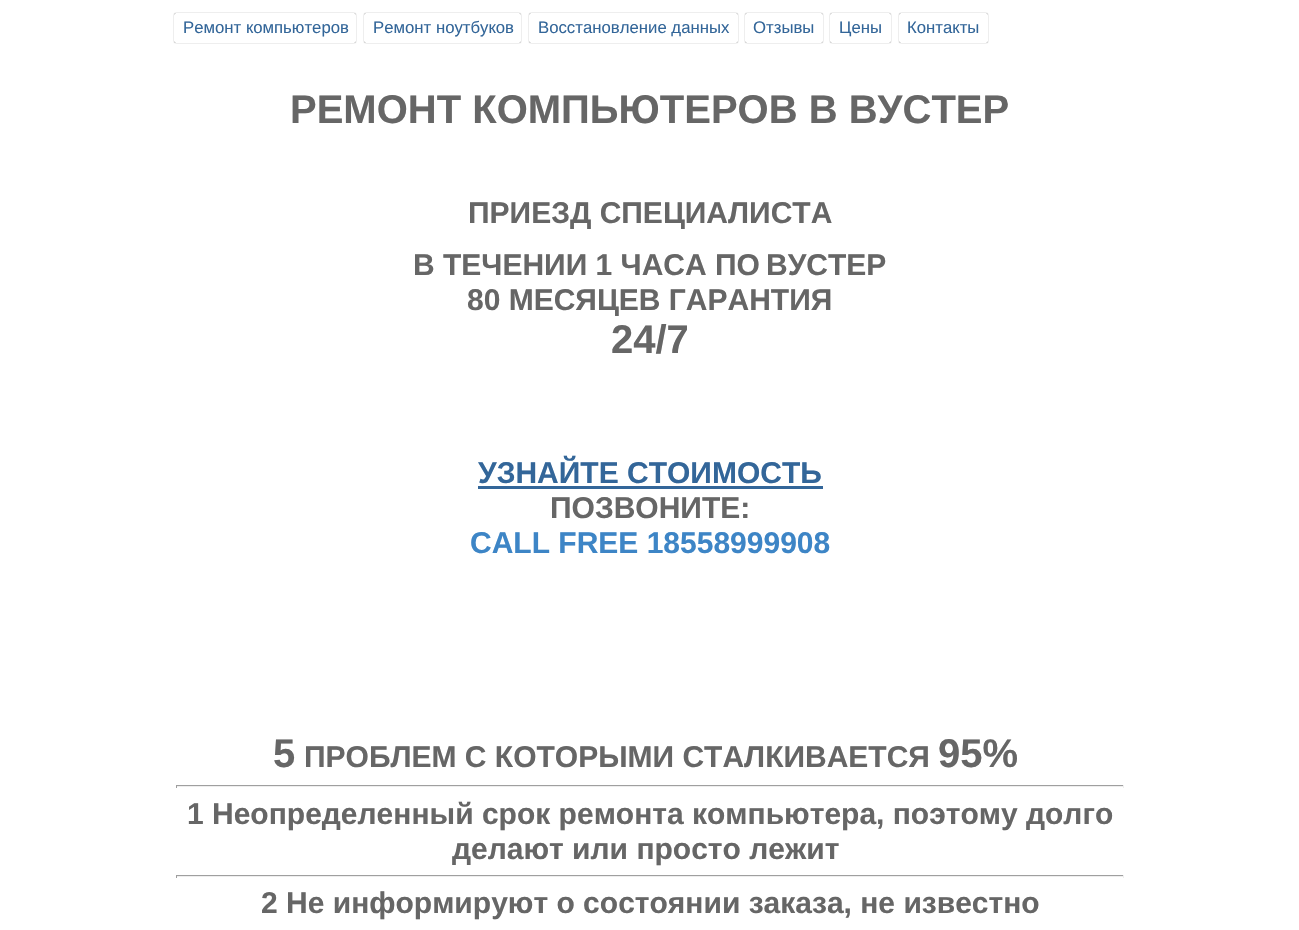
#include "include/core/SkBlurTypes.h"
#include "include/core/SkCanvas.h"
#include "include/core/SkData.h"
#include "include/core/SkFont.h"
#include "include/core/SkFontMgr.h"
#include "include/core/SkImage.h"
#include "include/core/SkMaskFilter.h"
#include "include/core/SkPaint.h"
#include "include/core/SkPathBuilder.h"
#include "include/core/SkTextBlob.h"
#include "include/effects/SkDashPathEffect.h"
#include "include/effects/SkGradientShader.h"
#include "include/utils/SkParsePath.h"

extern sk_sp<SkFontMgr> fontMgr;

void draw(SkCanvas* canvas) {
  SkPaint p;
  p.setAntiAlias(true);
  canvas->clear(SK_ColorWHITE);
  p.setColor(SkColorSetRGB(85, 85, 85));
  p.setMaskFilter(SkMaskFilter::MakeBlur(kNormal_SkBlurStyle, 0.5f));
  canvas->drawRoundRect(SkRect::MakeLTRB(174, 13, 356, 43), 2.5f, 2.5f, p);
  p.setMaskFilter(nullptr);
  p.setColor(SK_ColorWHITE);
  canvas->drawRoundRect(SkRect::MakeLTRB(174, 13, 356, 43), 2.5f, 2.5f, p);
  p.setColor(SkColorSetRGB(85, 85, 85));
  p.setMaskFilter(SkMaskFilter::MakeBlur(kNormal_SkBlurStyle, 0.5f));
  canvas->drawRoundRect(SkRect::MakeLTRB(364, 13, 521, 43), 2.5f, 2.5f, p);
  p.setMaskFilter(nullptr);
  p.setColor(SK_ColorWHITE);
  canvas->drawRoundRect(SkRect::MakeLTRB(364, 13, 521, 43), 2.5f, 2.5f, p);
  p.setColor(SkColorSetRGB(85, 85, 85));
  p.setMaskFilter(SkMaskFilter::MakeBlur(kNormal_SkBlurStyle, 0.5f));
  canvas->drawRoundRect(SkRect::MakeLTRB(529, 13, 738, 43), 2.5f, 2.5f, p);
  p.setMaskFilter(nullptr);
  p.setColor(SK_ColorWHITE);
  canvas->drawRoundRect(SkRect::MakeLTRB(529, 13, 738, 43), 2.5f, 2.5f, p);
  p.setColor(SkColorSetRGB(85, 85, 85));
  p.setMaskFilter(SkMaskFilter::MakeBlur(kNormal_SkBlurStyle, 0.5f));
  canvas->drawRoundRect(SkRect::MakeLTRB(745, 13, 823, 43), 2.5f, 2.5f, p);
  p.setMaskFilter(nullptr);
  p.setColor(SK_ColorWHITE);
  canvas->drawRoundRect(SkRect::MakeLTRB(745, 13, 823, 43), 2.5f, 2.5f, p);
  p.setColor(SkColorSetRGB(85, 85, 85));
  p.setMaskFilter(SkMaskFilter::MakeBlur(kNormal_SkBlurStyle, 0.5f));
  canvas->drawRoundRect(SkRect::MakeLTRB(830, 13, 891, 43), 2.5f, 2.5f, p);
  p.setMaskFilter(nullptr);
  p.setColor(SK_ColorWHITE);
  canvas->drawRoundRect(SkRect::MakeLTRB(830, 13, 891, 43), 2.5f, 2.5f, p);
  p.setColor(SkColorSetRGB(85, 85, 85));
  p.setMaskFilter(SkMaskFilter::MakeBlur(kNormal_SkBlurStyle, 0.5f));
  canvas->drawRoundRect(SkRect::MakeLTRB(899, 13, 988, 43), 2.5f, 2.5f, p);
  p.setMaskFilter(nullptr);
  p.setColor(SK_ColorWHITE);
  canvas->drawRoundRect(SkRect::MakeLTRB(899, 13, 988, 43), 2.5f, 2.5f, p);
  p.setColor(SkColorSetRGB(51, 102, 153));
  canvas->drawRect(SkRect::MakeLTRB(478, 486, 823, 489), p);
  p.setColor(SkColorSetRGB(159, 159, 159));
  canvas->drawRect(SkRect::MakeLTRB(176, 785, 1124, 786), p);
  p.setColor(SkColorSetRGB(238, 238, 238));
  canvas->drawRect(SkRect::MakeLTRB(1123, 785, 1124, 788), p);
  canvas->drawRect(SkRect::MakeLTRB(176, 786, 1124, 787), p);
  p.setColor(SkColorSetRGB(159, 159, 159));
  canvas->drawRect(SkRect::MakeLTRB(176, 785, 177, 788), p);
  canvas->drawRect(SkRect::MakeLTRB(176, 875, 1124, 876), p);
  p.setColor(SkColorSetRGB(238, 238, 238));
  canvas->drawRect(SkRect::MakeLTRB(1123, 875, 1124, 878), p);
  canvas->drawRect(SkRect::MakeLTRB(176, 876, 1124, 877), p);
  p.setColor(SkColorSetRGB(159, 159, 159));
  canvas->drawRect(SkRect::MakeLTRB(176, 875, 177, 878), p);
  SkFont font1(fontMgr->matchFamilyStyle("Liberation Sans", SkFontStyle::Normal()), 16.75f);
  font1.setSubpixel(true);
  p.setColor(SkColorSetRGB(51, 102, 153));
  canvas->drawString("Ремонт компьютеров", 183, 33, font1, p);
  canvas->drawString("Ремонт ноутбуков", 373, 33, font1, p);
  canvas->drawString("Восстановление данных", 538, 33, font1, p);
  canvas->drawString("Отзывы", 753, 33, font1, p);
  canvas->drawString("Цены", 839, 33, font1, p);
  canvas->drawString("Контакты", 907, 33, font1, p);
  SkFont font2(fontMgr->matchFamilyStyle("Liberation Sans", SkFontStyle::Bold()), 40);
  font2.setSubpixel(true);
  p.setColor(SkColorSetRGB(102, 102, 102));
  canvas->drawString("РЕМОНТ КОМПЬЮТЕРОВ В ВУСТЕР", 290, 123, font2, p);
  SkFont font3(fontMgr->matchFamilyStyle("Liberation Sans", SkFontStyle::Bold()), 30);
  font3.setSubpixel(true);
  canvas->drawString("ПРИЕЗД СПЕЦИАЛИСТА", 468, 223, font3, p);
  canvas->drawString("В ТЕЧЕНИИ 1 ЧАСА ПО", 413, 275, font3, p);
  canvas->drawString("ВУСТЕР", 766, 275, font3, p);
  canvas->drawString("80 МЕСЯЦЕВ ГАРАНТИЯ", 467, 310, font3, p);
  canvas->drawString("24/7", 611, 353, font2, p);
  p.setColor(SkColorSetRGB(51, 102, 153));
  canvas->drawString("УЗНАЙТЕ СТОИМОСТЬ", 478, 483, font3, p);
  p.setColor(SkColorSetRGB(102, 102, 102));
  canvas->drawString("ПОЗВОНИТЕ:", 550, 518, font3, p);
  p.setColor(SkColorSetRGB(61, 133, 198));
  canvas->drawString("CALL FREE 18558999908", 470, 553, font3, p);
  p.setColor(SkColorSetRGB(102, 102, 102));
  canvas->drawString("5", 273, 767, font2, p);
  canvas->drawString("ПРОБЛЕМ С КОТОРЫМИ СТАЛКИВАЕТСЯ", 304, 767, font3, p);
  canvas->drawString("95%", 938, 767, font2, p);
  canvas->drawString("1 Неопределенный срок ремонта компьютера, поэтому долго", 187, 824, font3, p);
  canvas->drawString("делают или просто лежит", 452, 859, font3, p);
  canvas->drawString("2 Не информируют о состоянии заказа, не известно", 261, 913, font3, p);
}
